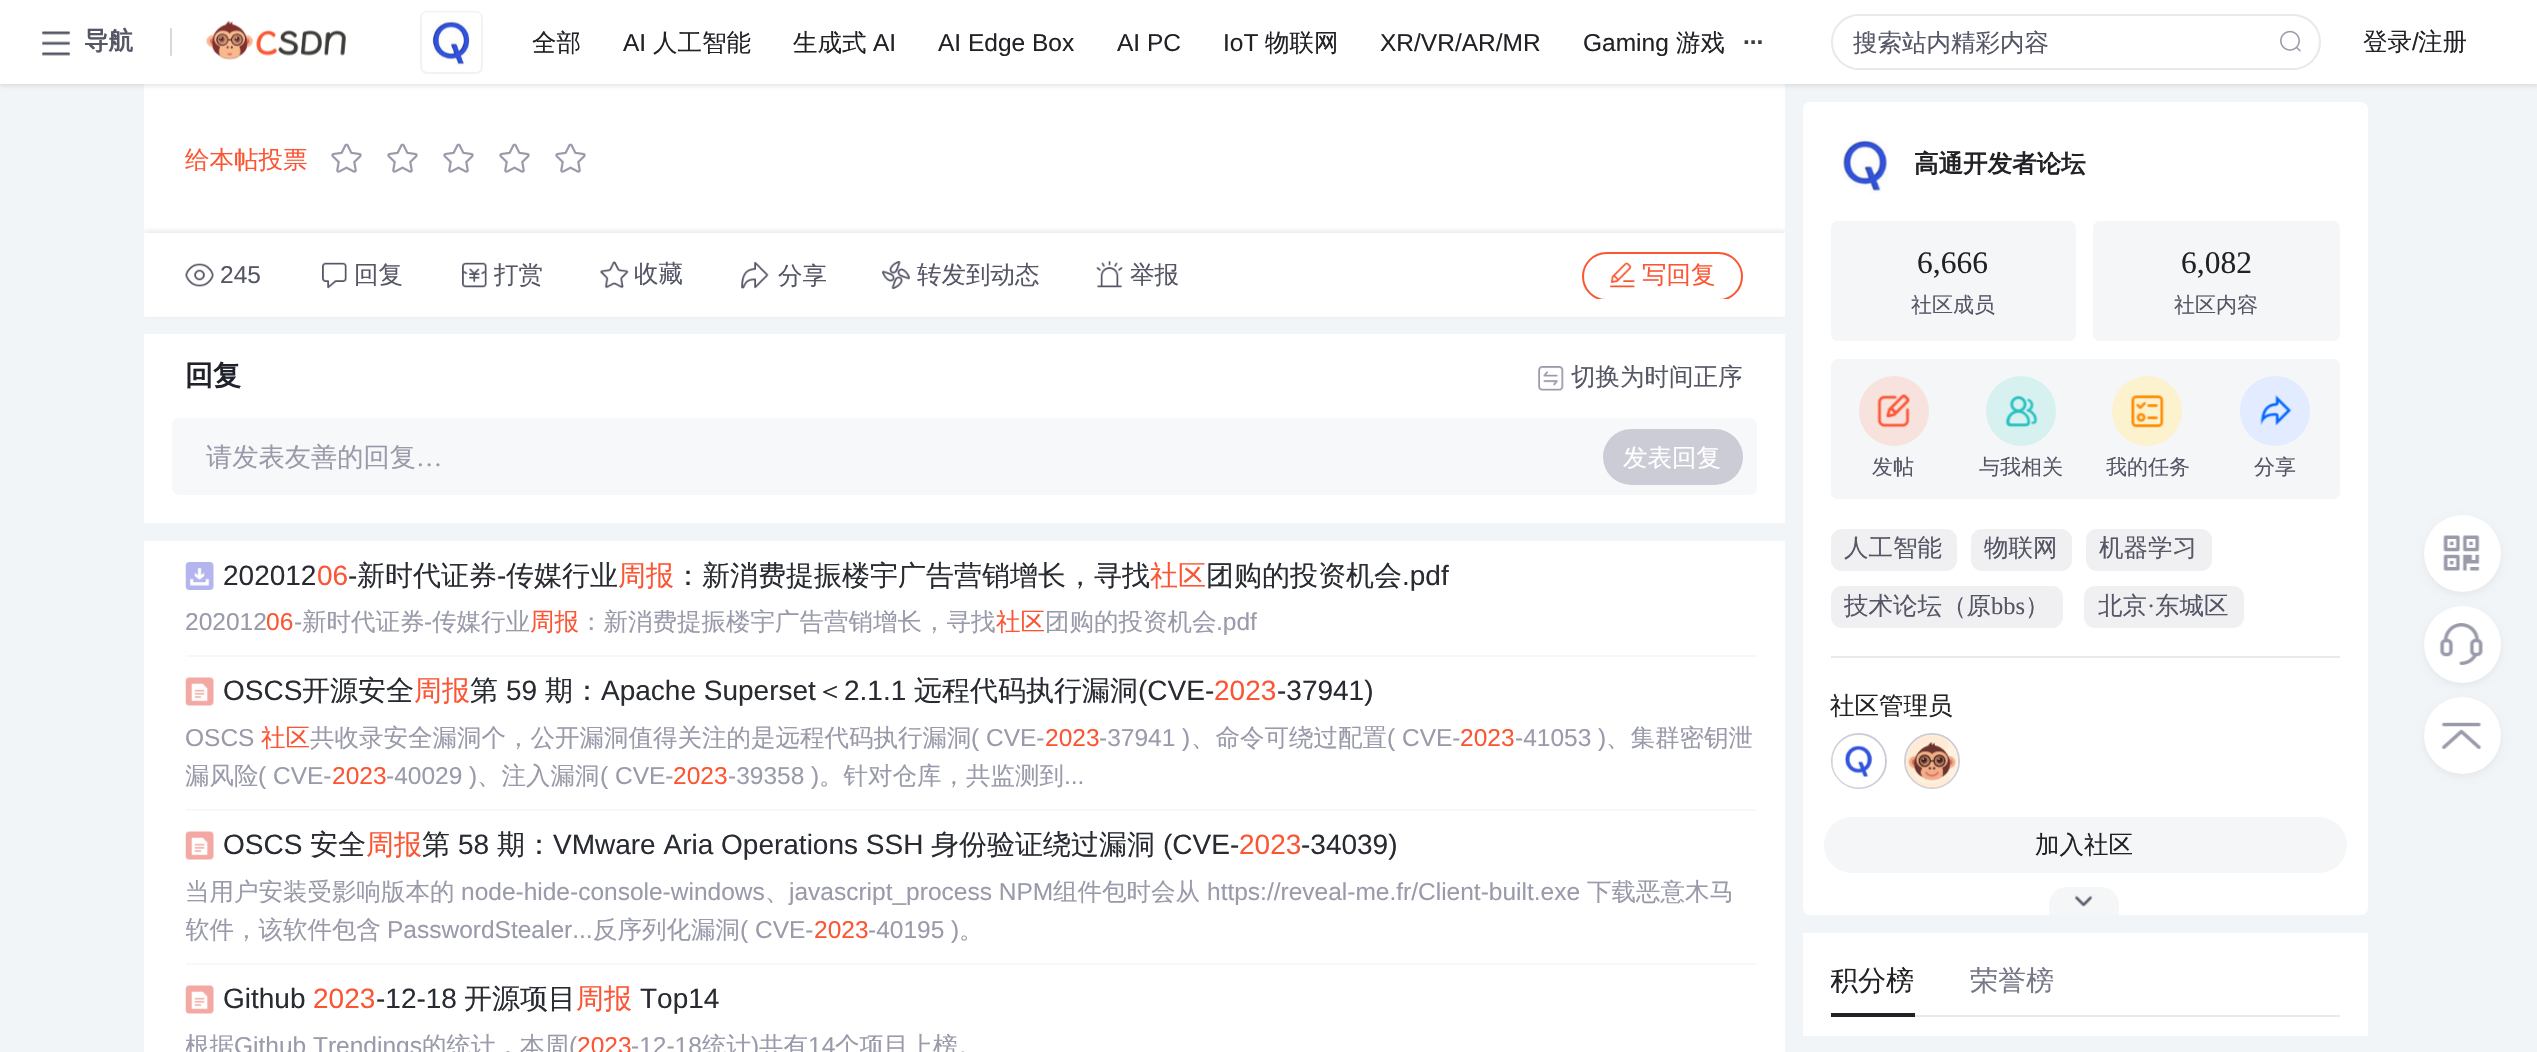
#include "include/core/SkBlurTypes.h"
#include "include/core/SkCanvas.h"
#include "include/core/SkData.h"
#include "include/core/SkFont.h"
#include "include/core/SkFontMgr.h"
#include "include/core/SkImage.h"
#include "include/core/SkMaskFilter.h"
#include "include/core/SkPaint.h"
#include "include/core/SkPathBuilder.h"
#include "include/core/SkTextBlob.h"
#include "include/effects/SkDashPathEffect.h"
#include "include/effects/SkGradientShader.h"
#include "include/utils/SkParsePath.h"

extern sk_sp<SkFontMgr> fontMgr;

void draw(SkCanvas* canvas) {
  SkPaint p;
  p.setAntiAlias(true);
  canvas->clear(SkColorSetRGB(242, 245, 247));
  p.setColor(SK_ColorWHITE);
  canvas->drawRect(SkRect::MakeLTRB(144, 84, 1785, 233), p);
  p.setColor(SkColorSetARGB(26, 0, 0, 0));
  p.setMaskFilter(SkMaskFilter::MakeBlur(kNormal_SkBlurStyle, 2));
  canvas->drawRect(SkRect::MakeLTRB(0, 2, 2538, 86), p);
  p.setMaskFilter(nullptr);
  p.setColor(SK_ColorWHITE);
  canvas->drawRect(SkRect::MakeLTRB(0, 0, 2537, 84), p);
  canvas->drawImageRect(SkImages::DeferredFromEncodedData(SkData::MakeFromFileName("images/1.png")), SkRect::MakeLTRB(42, 31, 70, 56), SkSamplingOptions());
  p.setColor(SkColorSetRGB(216, 216, 216));
  canvas->drawRoundRect(SkRect::MakeLTRB(170, 28, 172, 56), 1, 1, p);
  canvas->drawImageRect(SkImages::DeferredFromEncodedData(SkData::MakeFromFileName("images/2.png")), SkRect::MakeLTRB(206, 20, 346, 60), SkSamplingOptions());
  p.setStyle(SkPaint::kStroke_Style);
  p.setStrokeWidth(2);
  p.setColor(SkColorSetRGB(242, 242, 242));
  canvas->drawRoundRect(SkRect::MakeLTRB(421, 12, 482, 73), 6, 6, p);
  canvas->drawImageRect(SkImages::DeferredFromEncodedData(SkData::MakeFromFileName("images/3.png")), SkRect::MakeLTRB(422, 12, 481, 67), SkSamplingOptions());
  p.setColor(SkColorSetRGB(232, 232, 237));
  canvas->drawRoundRect(SkRect::MakeLTRB(1832, 15, 2320, 69), 27, 27, p);
  canvas->save();
  canvas->clipPath(SkPathBuilder().moveTo(1858, 16).lineTo(2293, 16).cubicTo(2307.5f, 16, 2319, 27.5f, 2319, 42).cubicTo(2319, 56.5f, 2307.5f, 68, 2293, 68).lineTo(1858, 68).cubicTo(1843.5f, 68, 1832, 56.5f, 1832, 42).cubicTo(1832, 27.5f, 1843.5f, 16, 1858, 16).close().detach(), true);
  p.setStyle(SkPaint::kFill_Style);
  p.setColor(SK_ColorWHITE);
  canvas->drawRect(SkRect::MakeLTRB(1853, 16, 2273, 68), p);
  canvas->restore();
  canvas->drawImageRect(SkImages::DeferredFromEncodedData(SkData::MakeFromFileName("images/4.png")), SkRect::MakeLTRB(2280, 30, 2301, 52), SkSamplingOptions());
  canvas->drawImageRect(SkImages::DeferredFromEncodedData(SkData::MakeFromFileName("images/5.png")), SkRect::MakeLTRB(331, 143, 362, 173), SkSamplingOptions());
  canvas->drawImageRect(SkImages::DeferredFromEncodedData(SkData::MakeFromFileName("images/5.png")), SkRect::MakeLTRB(387, 143, 418, 173), SkSamplingOptions());
  canvas->drawImageRect(SkImages::DeferredFromEncodedData(SkData::MakeFromFileName("images/5.png")), SkRect::MakeLTRB(443, 143, 474, 173), SkSamplingOptions());
  canvas->drawImageRect(SkImages::DeferredFromEncodedData(SkData::MakeFromFileName("images/5.png")), SkRect::MakeLTRB(499, 143, 530, 173), SkSamplingOptions());
  canvas->drawImageRect(SkImages::DeferredFromEncodedData(SkData::MakeFromFileName("images/5.png")), SkRect::MakeLTRB(555, 143, 586, 173), SkSamplingOptions());
  canvas->save();
  canvas->clipPath(SkPathBuilder().moveTo(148, -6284).lineTo(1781, -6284).cubicTo(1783, -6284, 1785, -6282, 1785, -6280).lineTo(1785, 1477).cubicTo(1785, 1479, 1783, 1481, 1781, 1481).lineTo(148, 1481).cubicTo(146, 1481, 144, 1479, 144, 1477).lineTo(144, -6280).cubicTo(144, -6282, 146, -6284, 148, -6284).close().detach(), true);
  p.setColor(SkColorSetARGB(26, 18, 18, 18));
  p.setMaskFilter(SkMaskFilter::MakeBlur(kNormal_SkBlurStyle, 2.5f));
  canvas->drawRect(SkRect::MakeLTRB(144, 231, 1785, 315), p);
  p.setMaskFilter(nullptr);
  canvas->restore();
  p.setColor(SK_ColorWHITE);
  canvas->drawRect(SkRect::MakeLTRB(144, 233, 1785, 317), p);
  canvas->drawImageRect(SkImages::DeferredFromEncodedData(SkData::MakeFromFileName("images/6.png")), SkRect::MakeLTRB(185, 263, 214, 287), SkSamplingOptions());
  canvas->drawImageRect(SkImages::DeferredFromEncodedData(SkData::MakeFromFileName("images/7.png")), SkRect::MakeLTRB(322, 262, 347, 289), SkSamplingOptions());
  canvas->drawImageRect(SkImages::DeferredFromEncodedData(SkData::MakeFromFileName("images/8.png")), SkRect::MakeLTRB(462, 262, 487, 288), SkSamplingOptions());
  canvas->drawImageRect(SkImages::DeferredFromEncodedData(SkData::MakeFromFileName("images/9.png")), SkRect::MakeLTRB(600, 261, 629, 289), SkSamplingOptions());
  canvas->drawImageRect(SkImages::DeferredFromEncodedData(SkData::MakeFromFileName("images/10.png")), SkRect::MakeLTRB(741, 261, 769, 289), SkSamplingOptions());
  canvas->drawImageRect(SkImages::DeferredFromEncodedData(SkData::MakeFromFileName("images/11.png")), SkRect::MakeLTRB(882, 261, 910, 289), SkSamplingOptions());
  canvas->drawImageRect(SkImages::DeferredFromEncodedData(SkData::MakeFromFileName("images/12.png")), SkRect::MakeLTRB(1096, 261, 1123, 288), SkSamplingOptions());
  canvas->save();
  canvas->clipRect(SkRect::MakeLTRB(144, 250, 1785, 299));
  p.setStyle(SkPaint::kStroke_Style);
  p.setColor(SkColorSetRGB(252, 85, 49));
  canvas->drawRoundRect(SkRect::MakeLTRB(1583, 253, 1742, 300), 23.5f, 23.5f, p);
  canvas->restore();
  canvas->drawImageRect(SkImages::DeferredFromEncodedData(SkData::MakeFromFileName("images/13.png")), SkRect::MakeLTRB(1610, 262, 1635, 288), SkSamplingOptions());
  p.setStyle(SkPaint::kFill_Style);
  p.setColor(SK_ColorWHITE);
  canvas->drawRect(SkRect::MakeLTRB(144, 334, 1785, 523), p);
  canvas->drawImageRect(SkImages::DeferredFromEncodedData(SkData::MakeFromFileName("images/14.png")), SkRect::MakeLTRB(1538, 366, 1564, 391), SkSamplingOptions());
  p.setColor(SkColorSetRGB(247, 248, 249));
  canvas->drawRoundRect(SkRect::MakeLTRB(172, 418, 1757, 495), 7, 7, p);
  p.setColor(SkColorSetRGB(204, 204, 215));
  canvas->drawRoundRect(SkRect::MakeLTRB(1603, 429, 1743, 485), 28, 28, p);
  p.setColor(SK_ColorWHITE);
  canvas->drawRect(SkRect::MakeLTRB(144, 541, 1785, 1052), p);
  p.setColor(SkColorSetRGB(247, 247, 252));
  canvas->drawRect(SkRect::MakeLTRB(186, 655, 1757, 657), p);
  canvas->drawImageRect(SkImages::DeferredFromEncodedData(SkData::MakeFromFileName("images/15.png")), SkRect::MakeLTRB(185, 562, 214, 590), SkSamplingOptions());
  canvas->drawRect(SkRect::MakeLTRB(186, 809, 1757, 811), p);
  canvas->drawImageRect(SkImages::DeferredFromEncodedData(SkData::MakeFromFileName("images/16.png")), SkRect::MakeLTRB(185, 677, 214, 706), SkSamplingOptions());
  canvas->drawRect(SkRect::MakeLTRB(186, 963, 1757, 965), p);
  canvas->drawImageRect(SkImages::DeferredFromEncodedData(SkData::MakeFromFileName("images/16.png")), SkRect::MakeLTRB(185, 831, 214, 860), SkSamplingOptions());
  canvas->drawImageRect(SkImages::DeferredFromEncodedData(SkData::MakeFromFileName("images/16.png")), SkRect::MakeLTRB(185, 985, 214, 1014), SkSamplingOptions());
  p.setColor(SK_ColorWHITE);
  canvas->drawRoundRect(SkRect::MakeLTRB(1803, 102, 2368, 915), 7, 7, p);
  canvas->drawImageRect(SkImages::DeferredFromEncodedData(SkData::MakeFromFileName("images/17.png")), SkRect::MakeLTRB(1842, 136, 1888, 194), SkSamplingOptions());
  p.setColor(SkColorSetRGB(245, 246, 247));
  canvas->drawRoundRect(SkRect::MakeLTRB(1831, 221, 2076, 341), 7, 7, p);
  canvas->drawRoundRect(SkRect::MakeLTRB(2093, 221, 2340, 341), 7, 7, p);
  canvas->drawRoundRect(SkRect::MakeLTRB(1831, 359, 2340, 499), 7, 7, p);
  p.setColor(SkColorSetRGB(247, 226, 221));
  canvas->drawCircle(1894, 411, 35, p);
  canvas->drawImageRect(SkImages::DeferredFromEncodedData(SkData::MakeFromFileName("images/18.png")), SkRect::MakeLTRB(1877, 394, 1910, 428), SkSamplingOptions());
  p.setColor(SkColorSetRGB(215, 241, 241));
  canvas->drawCircle(2021, 411, 35, p);
  canvas->drawImageRect(SkImages::DeferredFromEncodedData(SkData::MakeFromFileName("images/19.png")), SkRect::MakeLTRB(2005, 395, 2038, 428), SkSamplingOptions());
  p.setColor(SkColorSetRGB(253, 242, 206));
  canvas->drawCircle(2147, 411, 35, p);
  canvas->drawImageRect(SkImages::DeferredFromEncodedData(SkData::MakeFromFileName("images/20.png")), SkRect::MakeLTRB(2131, 395, 2164, 428), SkSamplingOptions());
  p.setColor(SkColorSetRGB(226, 235, 255));
  canvas->drawCircle(2275, 411, 35, p);
  canvas->drawImageRect(SkImages::DeferredFromEncodedData(SkData::MakeFromFileName("images/21.png")), SkRect::MakeLTRB(2260, 395, 2292, 426), SkSamplingOptions());
  p.setColor(SkColorSetRGB(240, 240, 242));
  canvas->drawRoundRect(SkRect::MakeLTRB(1831, 529, 1957, 571), 11, 11, p);
  canvas->drawRoundRect(SkRect::MakeLTRB(1971, 529, 2072, 571), 11, 11, p);
  canvas->drawRoundRect(SkRect::MakeLTRB(2086, 529, 2212, 571), 11, 11, p);
  canvas->drawRoundRect(SkRect::MakeLTRB(1831, 586, 2063, 628), 11, 11, p);
  canvas->drawRoundRect(SkRect::MakeLTRB(2084, 586, 2244, 628), 11, 11, p);
  p.setColor(SkColorSetRGB(232, 232, 237));
  canvas->drawRect(SkRect::MakeLTRB(1831, 656, 2340, 658), p);
  p.setStyle(SkPaint::kStroke_Style);
  p.setColor(SkColorSetRGB(204, 204, 216));
  canvas->drawCircle(1859, 761, 27, p);
  canvas->drawImageRect(SkImages::DeferredFromEncodedData(SkData::MakeFromFileName("images/22.png")), SkRect::MakeLTRB(1832, 734, 1885, 788), SkSamplingOptions());
  canvas->drawCircle(1932, 761, 27, p);
  canvas->drawImageRect(SkImages::DeferredFromEncodedData(SkData::MakeFromFileName("images/23.png")), SkRect::MakeLTRB(1905, 734, 1959, 788), SkSamplingOptions());
  p.setStyle(SkPaint::kFill_Style);
  p.setColor(SkColorSetRGB(245, 246, 247));
  canvas->drawRoundRect(SkRect::MakeLTRB(1824, 817, 2347, 873), 28, 28, p);
  canvas->drawPath(SkPathBuilder().moveTo(2067, 887).lineTo(2101, 887).cubicTo(2111, 887, 2119, 895, 2119, 905).lineTo(2119, 915).lineTo(2049, 915).lineTo(2049, 905).cubicTo(2049, 895, 2057, 887, 2067, 887).close().detach(), p);
  canvas->drawImageRect(SkImages::DeferredFromEncodedData(SkData::MakeFromFileName("images/24.png")), SkRect::MakeLTRB(2074, 895, 2093, 907), SkSamplingOptions());
  p.setColor(SK_ColorWHITE);
  canvas->drawRect(SkRect::MakeLTRB(1803, 933, 2368, 1036), p);
  p.setColor(SkColorSetRGB(34, 34, 38));
  canvas->drawRect(SkRect::MakeLTRB(1831, 1013, 1915, 1017), p);
  p.setColor(SkColorSetRGB(232, 232, 237));
  canvas->drawRect(SkRect::MakeLTRB(1915, 1015, 2340, 1017), p);
  p.setColor(SkColorSetARGB(13, 0, 0, 0));
  p.setMaskFilter(SkMaskFilter::MakeBlur(kNormal_SkBlurStyle, 3.5f));
  canvas->drawRoundRect(SkRect::MakeLTRB(2424, 518, 2501, 595), 38.5f, 38.5f, p);
  p.setMaskFilter(nullptr);
  p.setColor(SK_ColorWHITE);
  canvas->drawCircle(2462.5f, 553.5f, 38.5f, p);
  canvas->drawImageRect(SkImages::DeferredFromEncodedData(SkData::MakeFromFileName("images/25.png")), SkRect::MakeLTRB(2443, 535, 2480, 571), SkSamplingOptions());
  p.setColor(SkColorSetARGB(13, 0, 0, 0));
  p.setMaskFilter(SkMaskFilter::MakeBlur(kNormal_SkBlurStyle, 3.5f));
  canvas->drawRoundRect(SkRect::MakeLTRB(2424, 609, 2501, 686), 38.5f, 38.5f, p);
  p.setMaskFilter(nullptr);
  p.setColor(SK_ColorWHITE);
  canvas->drawCircle(2462.5f, 644.5f, 38.5f, p);
  canvas->drawImageRect(SkImages::DeferredFromEncodedData(SkData::MakeFromFileName("images/26.png")), SkRect::MakeLTRB(2439, 623, 2483, 665), SkSamplingOptions());
  p.setColor(SkColorSetARGB(13, 0, 0, 0));
  p.setMaskFilter(SkMaskFilter::MakeBlur(kNormal_SkBlurStyle, 3.5f));
  canvas->drawRoundRect(SkRect::MakeLTRB(2424, 700, 2501, 777), 38.5f, 38.5f, p);
  p.setMaskFilter(nullptr);
  p.setColor(SK_ColorWHITE);
  canvas->drawCircle(2462.5f, 735.5f, 38.5f, p);
  canvas->drawImageRect(SkImages::DeferredFromEncodedData(SkData::MakeFromFileName("images/27.png")), SkRect::MakeLTRB(2441, 722, 2482, 749), SkSamplingOptions());
  SkFont font1(fontMgr->matchFamilyStyle("WenQuanYi Zen Hei", SkFontStyle::Bold()), 24.5f);
  font1.setSubpixel(true);
  p.setColor(SkColorSetRGB(85, 86, 102));
  canvas->drawString("导航", 84, 49, font1, p);
  SkFont font2(fontMgr->matchFamilyStyle("WenQuanYi Zen Hei", SkFontStyle(500, SkFontStyle::kNormal_Width, SkFontStyle::kUpright_Slant)), 24.5f);
  font2.setSubpixel(true);
  p.setColor(SkColorSetRGB(34, 34, 38));
  canvas->drawString("全部", 532, 51, font2, p);
  SkFont font3(fontMgr->matchFamilyStyle("Liberation Sans", SkFontStyle::Normal()), 24.5f);
  font3.setSubpixel(true);
  canvas->drawString("AI", 623, 51, font3, p);
  canvas->drawString("人工智能", 653, 51, font2, p);
  canvas->drawString("生成式", 793, 51, font2, p);
  canvas->drawString("AI", 873, 51, font3, p);
  canvas->drawString("AI Edge Box", 938, 51, font3, p);
  canvas->drawString("AI PC", 1117, 51, font3, p);
  canvas->drawString("IoT", 1223, 51, font3, p);
  canvas->drawString("物联网", 1265, 51, font2, p);
  canvas->drawString("XR/VR/AR/MR", 1380, 51, font3, p);
  canvas->drawString("Gaming", 1583, 51, font3, p);
  canvas->drawString("游戏", 1676, 51, font2, p);
  SkFont font4(fontMgr->matchFamilyStyle("Liberation Sans", SkFontStyle::Bold()), 24.5f);
  font4.setSubpixel(true);
  p.setColor(SkColorSetRGB(64, 64, 64));
  canvas->drawString("...", 1743, 44, font4, p);
  p.setColor(SkColorSetRGB(85, 86, 102));
  canvas->drawString("搜索站内精彩内容", 1853, 51, font2, p);
  p.setColor(SkColorSetRGB(34, 34, 38));
  canvas->drawString("登录", 2363, 50, font2, p);
  canvas->drawString("/", 2412, 50, font3, p);
  canvas->drawString("注册", 2418, 50, font2, p);
  p.setColor(SkColorSetRGB(252, 85, 51));
  canvas->drawString("给本帖投票", 185, 168, font2, p);
  p.setColor(SkColorSetRGB(85, 86, 102));
  canvas->drawString("245", 220, 283, font3, p);
  canvas->drawString("回复", 354, 283, font2, p);
  canvas->drawString("打赏", 494, 283, font2, p);
  canvas->drawString("收藏", 634, 282, font2, p);
  canvas->drawString("分享", 778, 284, font2, p);
  canvas->drawString("转发到动态", 917, 283, font2, p);
  canvas->drawString("举报", 1130, 283, font2, p);
  p.setColor(SkColorSetRGB(252, 85, 51));
  canvas->drawString("写回复", 1642, 283, font2, p);
  SkFont font5(fontMgr->matchFamilyStyle("WenQuanYi Zen Hei", SkFontStyle::Bold()), 28);
  font5.setSubpixel(true);
  p.setColor(SkColorSetRGB(32, 35, 44));
  canvas->drawString("回复", 185, 385, font5, p);
  p.setColor(SkColorSetRGB(85, 86, 102));
  canvas->drawString("切换为时间正序", 1571, 385, font2, p);
  SkFont font6(fontMgr->matchFamilyStyle("WenQuanYi Zen Hei", SkFontStyle(500, SkFontStyle::kNormal_Width, SkFontStyle::kUpright_Slant)), 26.25f);
  font6.setSubpixel(true);
  p.setColor(SkColorSetRGB(153, 154, 170));
  canvas->drawString("请发表友善的回复", 206, 466, font6, p);
  SkFont font7(fontMgr->matchFamilyStyle("Liberation Serif", SkFontStyle::Normal()), 26.25f);
  font7.setSubpixel(true);
  canvas->drawString("…", 416, 466, font7, p);
  p.setColor(SK_ColorWHITE);
  canvas->drawString("发表回复", 1623, 466, font2, p);
  SkFont font8(fontMgr->matchFamilyStyle("Liberation Sans", SkFontStyle::Normal()), 28);
  font8.setSubpixel(true);
  p.setColor(SkColorSetRGB(40, 43, 49));
  canvas->drawString("202012", 223, 585, font8, p);
  p.setColor(SkColorSetRGB(252, 85, 51));
  canvas->drawString("06", 317, 585, font8, p);
  p.setColor(SkColorSetRGB(40, 43, 49));
  canvas->drawString("-", 348, 585, font8, p);
  SkFont font9(fontMgr->matchFamilyStyle("WenQuanYi Zen Hei", SkFontStyle(500, SkFontStyle::kNormal_Width, SkFontStyle::kUpright_Slant)), 28);
  font9.setSubpixel(true);
  canvas->drawString("新时代证券", 357, 585, font9, p);
  canvas->drawString("-", 497, 585, font8, p);
  canvas->drawString("传媒行业", 506, 585, font9, p);
  p.setColor(SkColorSetRGB(252, 85, 51));
  canvas->drawString("周报", 618, 585, font9, p);
  p.setColor(SkColorSetRGB(40, 43, 49));
  canvas->drawString("：新消费提振楼宇广告营销增长，寻找", 674, 585, font9, p);
  p.setColor(SkColorSetRGB(252, 85, 51));
  canvas->drawString("社区", 1150, 585, font9, p);
  p.setColor(SkColorSetRGB(40, 43, 49));
  canvas->drawString("团购的投资机会", 1206, 585, font9, p);
  canvas->save();
  canvas->clipRect(SkRect::MakeLTRB(224, 555, 1449, 597));
  canvas->drawString(".pdf", 1402, 585, font8, p);
  canvas->restore();
  p.setColor(SkColorSetRGB(153, 154, 170));
  canvas->drawString("202012", 185, 630, font3, p);
  p.setColor(SkColorSetRGB(252, 85, 51));
  canvas->drawString("06", 266, 630, font3, p);
  p.setColor(SkColorSetRGB(153, 154, 170));
  canvas->drawString("-", 294, 630, font3, p);
  canvas->drawString("新时代证券", 302, 630, font2, p);
  canvas->drawString("-", 424, 630, font3, p);
  canvas->drawString("传媒行业", 432, 630, font2, p);
  p.setColor(SkColorSetRGB(252, 85, 51));
  canvas->drawString("周报", 530, 630, font2, p);
  p.setColor(SkColorSetRGB(153, 154, 170));
  canvas->drawString("：新消费提振楼宇广告营销增长，寻找", 579, 630, font2, p);
  p.setColor(SkColorSetRGB(252, 85, 51));
  canvas->drawString("社区", 996, 630, font2, p);
  p.setColor(SkColorSetRGB(153, 154, 170));
  canvas->drawString("团购的投资机会", 1045, 630, font2, p);
  canvas->drawString(".pdf", 1216, 630, font3, p);
  p.setColor(SkColorSetRGB(40, 43, 49));
  canvas->drawString("OSCS", 223, 700, font8, p);
  canvas->drawString("开源安全", 302, 700, font9, p);
  p.setColor(SkColorSetRGB(252, 85, 51));
  canvas->drawString("周报", 414, 700, font9, p);
  p.setColor(SkColorSetRGB(40, 43, 49));
  canvas->drawString("第", 470, 700, font9, p);
  canvas->drawString("59", 506, 700, font8, p);
  canvas->drawString("期：", 545, 700, font9, p);
  canvas->drawString("Apache Superset", 601, 700, font8, p);
  canvas->drawString("＜", 816, 700, font9, p);
  canvas->drawString("2.1.1", 844, 700, font8, p);
  canvas->drawString("远程代码执行漏洞", 914, 700, font9, p);
  canvas->drawString("(CVE-", 1138, 700, font8, p);
  p.setColor(SkColorSetRGB(252, 85, 51));
  canvas->drawString("2023", 1214, 700, font8, p);
  p.setColor(SkColorSetRGB(40, 43, 49));
  canvas->drawString("-37941)", 1277, 700, font8, p);
  canvas->save();
  canvas->clipRect(SkRect::MakeLTRB(186, 718, 1757, 795));
  p.setColor(SkColorSetRGB(153, 154, 170));
  canvas->drawString("OSCS", 185, 746, font3, p);
  canvas->restore();
  p.setColor(SkColorSetRGB(252, 85, 51));
  canvas->drawString("社区", 261, 746, font2, p);
  p.setColor(SkColorSetRGB(153, 154, 170));
  canvas->drawString("共收录安全漏洞个，公开漏洞值得关注的是远程代码执行漏洞", 310, 746, font2, p);
  canvas->drawString("( CVE-", 971, 746, font3, p);
  p.setColor(SkColorSetRGB(252, 85, 51));
  canvas->drawString("2023", 1045, 746, font3, p);
  p.setColor(SkColorSetRGB(153, 154, 170));
  canvas->drawString("-37941 )", 1099, 746, font3, p);
  canvas->drawString("、命令可绕过配置", 1191, 746, font2, p);
  canvas->drawString("( CVE-", 1387, 746, font3, p);
  p.setColor(SkColorSetRGB(252, 85, 51));
  canvas->drawString("2023", 1460, 746, font3, p);
  p.setColor(SkColorSetRGB(153, 154, 170));
  canvas->drawString("-41053 )", 1515, 746, font3, p);
  canvas->drawString("、集群密钥泄", 1606, 746, font2, p);
  canvas->save();
  canvas->clipRect(SkRect::MakeLTRB(186, 718, 1757, 795));
  canvas->drawString("漏风险", 185, 784, font2, p);
  canvas->restore();
  canvas->drawString("( CVE-", 258, 784, font3, p);
  p.setColor(SkColorSetRGB(252, 85, 51));
  canvas->drawString("2023", 332, 784, font3, p);
  p.setColor(SkColorSetRGB(153, 154, 170));
  canvas->drawString("-40029 )", 386, 784, font3, p);
  canvas->drawString("、注入漏洞", 477, 784, font2, p);
  canvas->drawString("( CVE-", 600, 784, font3, p);
  p.setColor(SkColorSetRGB(252, 85, 51));
  canvas->drawString("2023", 673, 784, font3, p);
  p.setColor(SkColorSetRGB(153, 154, 170));
  canvas->drawString("-39358 )", 728, 784, font3, p);
  canvas->drawString("。针对仓库，共监测到", 819, 784, font2, p);
  canvas->drawString("...", 1064, 784, font3, p);
  p.setColor(SkColorSetRGB(40, 43, 49));
  canvas->drawString("OSCS", 223, 854, font8, p);
  canvas->drawString("安全", 310, 854, font9, p);
  p.setColor(SkColorSetRGB(252, 85, 51));
  canvas->drawString("周报", 366, 854, font9, p);
  p.setColor(SkColorSetRGB(40, 43, 49));
  canvas->drawString("第", 422, 854, font9, p);
  canvas->drawString("58", 458, 854, font8, p);
  canvas->drawString("期：", 497, 854, font9, p);
  canvas->drawString("VMware Aria Operations SSH", 553, 854, font8, p);
  canvas->drawString("身份验证绕过漏洞", 931, 854, font9, p);
  canvas->drawString("(CVE-", 1163, 854, font8, p);
  p.setColor(SkColorSetRGB(252, 85, 51));
  canvas->drawString("2023", 1239, 854, font8, p);
  p.setColor(SkColorSetRGB(40, 43, 49));
  canvas->drawString("-34039)", 1301, 854, font8, p);
  p.setColor(SkColorSetRGB(153, 154, 170));
  canvas->drawString("当用户安装受影响版本的", 185, 900, font2, p);
  canvas->drawString("node-hide-console-windows", 461, 900, font3, p);
  canvas->drawString("、", 765, 900, font2, p);
  canvas->drawString("javascript_process NPM", 789, 900, font3, p);
  canvas->drawString("组件包时会从", 1053, 900, font2, p);
  canvas->drawString("https://reveal-me.fr/Client-built.exe", 1207, 900, font3, p);
  canvas->drawString("下载恶意木马", 1587, 900, font2, p);
  canvas->save();
  canvas->clipRect(SkRect::MakeLTRB(186, 872, 1757, 949));
  canvas->drawString("软件，该软件包含", 185, 938, font2, p);
  canvas->restore();
  canvas->drawString("PasswordStealer...", 387, 938, font3, p);
  canvas->drawString("反序列化漏洞", 593, 938, font2, p);
  canvas->drawString("( CVE-", 740, 938, font3, p);
  p.setColor(SkColorSetRGB(252, 85, 51));
  canvas->drawString("2023", 814, 938, font3, p);
  p.setColor(SkColorSetRGB(153, 154, 170));
  canvas->drawString("-40195 )", 868, 938, font3, p);
  canvas->drawString("。", 959, 938, font2, p);
  p.setColor(SkColorSetRGB(40, 43, 49));
  canvas->drawString("Github", 223, 1008, font8, p);
  p.setColor(SkColorSetRGB(252, 85, 51));
  canvas->drawString("2023", 313, 1008, font8, p);
  p.setColor(SkColorSetRGB(40, 43, 49));
  canvas->drawString("-12-18", 376, 1008, font8, p);
  canvas->drawString("开源项目", 464, 1008, font9, p);
  p.setColor(SkColorSetRGB(252, 85, 51));
  canvas->drawString("周报", 576, 1008, font9, p);
  p.setColor(SkColorSetRGB(40, 43, 49));
  canvas->drawString("Top14", 640, 1008, font8, p);
  canvas->save();
  canvas->clipRect(SkRect::MakeLTRB(186, 1026, 1757, 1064));
  p.setColor(SkColorSetRGB(153, 154, 170));
  canvas->drawString("根据", 185, 1054, font2, p);
  canvas->restore();
  canvas->drawString("Github Trendings", 234, 1054, font3, p);
  canvas->drawString("的统计，本周", 422, 1054, font2, p);
  canvas->drawString("(", 569, 1054, font3, p);
  p.setColor(SkColorSetRGB(252, 85, 51));
  canvas->drawString("2023", 577, 1054, font3, p);
  p.setColor(SkColorSetRGB(153, 154, 170));
  canvas->drawString("-12-18", 631, 1054, font3, p);
  canvas->drawString("统计", 702, 1054, font2, p);
  canvas->drawString(")", 751, 1054, font3, p);
  canvas->drawString("共有", 759, 1054, font2, p);
  canvas->drawString("14", 808, 1054, font3, p);
  canvas->drawString("个项目上榜。", 835, 1054, font2, p);
  p.setColor(SkColorSetRGB(34, 34, 38));
  canvas->drawString("高通开发者论坛", 1914, 172, font1, p);
  SkFont font10(fontMgr->matchFamilyStyle("Liberation Serif", SkFontStyle::Normal()), 31.5f);
  font10.setSubpixel(true);
  canvas->drawString("6,666", 1917, 273, font10, p);
  SkFont font11(fontMgr->matchFamilyStyle("WenQuanYi Zen Hei", SkFontStyle(500, SkFontStyle::kNormal_Width, SkFontStyle::kUpright_Slant)), 21);
  font11.setSubpixel(true);
  p.setColor(SkColorSetRGB(85, 86, 102));
  canvas->drawString("社区成员", 1911, 312, font11, p);
  p.setColor(SkColorSetRGB(34, 34, 38));
  canvas->drawString("6,082", 2181, 273, font10, p);
  p.setColor(SkColorSetRGB(85, 86, 102));
  canvas->drawString("社区内容", 2174, 312, font11, p);
  canvas->drawString("发帖", 1872, 474, font11, p);
  canvas->drawString("与我相关", 1979, 474, font11, p);
  canvas->drawString("我的任务", 2106, 474, font11, p);
  canvas->drawString("分享", 2254, 474, font11, p);
  canvas->drawString("人工智能", 1844, 556, font2, p);
  canvas->drawString("物联网", 1984, 556, font2, p);
  canvas->drawString("机器学习", 2099, 556, font2, p);
  canvas->drawString("技术论坛（原", 1844, 614, font2, p);
  SkFont font12(fontMgr->matchFamilyStyle("Liberation Serif", SkFontStyle::Normal()), 24.5f);
  font12.setSubpixel(true);
  canvas->drawString("bbs", 1991, 614, font12, p);
  canvas->drawString("）", 2025, 614, font2, p);
  canvas->drawString("北京", 2098, 614, font2, p);
  canvas->drawString("·", 2147, 614, font12, p);
  canvas->drawString("东城区", 2155, 614, font2, p);
  p.setColor(SkColorSetRGB(34, 34, 38));
  canvas->drawString("社区管理员", 1830, 714, font2, p);
  canvas->drawString("加入社区", 2035, 853, font2, p);
  canvas->save();
  canvas->clipRect(SkRect::MakeLTRB(1831, 947, 2340, 1017));
  canvas->drawString("积分榜", 1830, 990, font9, p);
  canvas->restore();
  p.setColor(SkColorSetRGB(119, 120, 136));
  canvas->drawString("荣誉榜", 1970, 990, font9, p);
}
